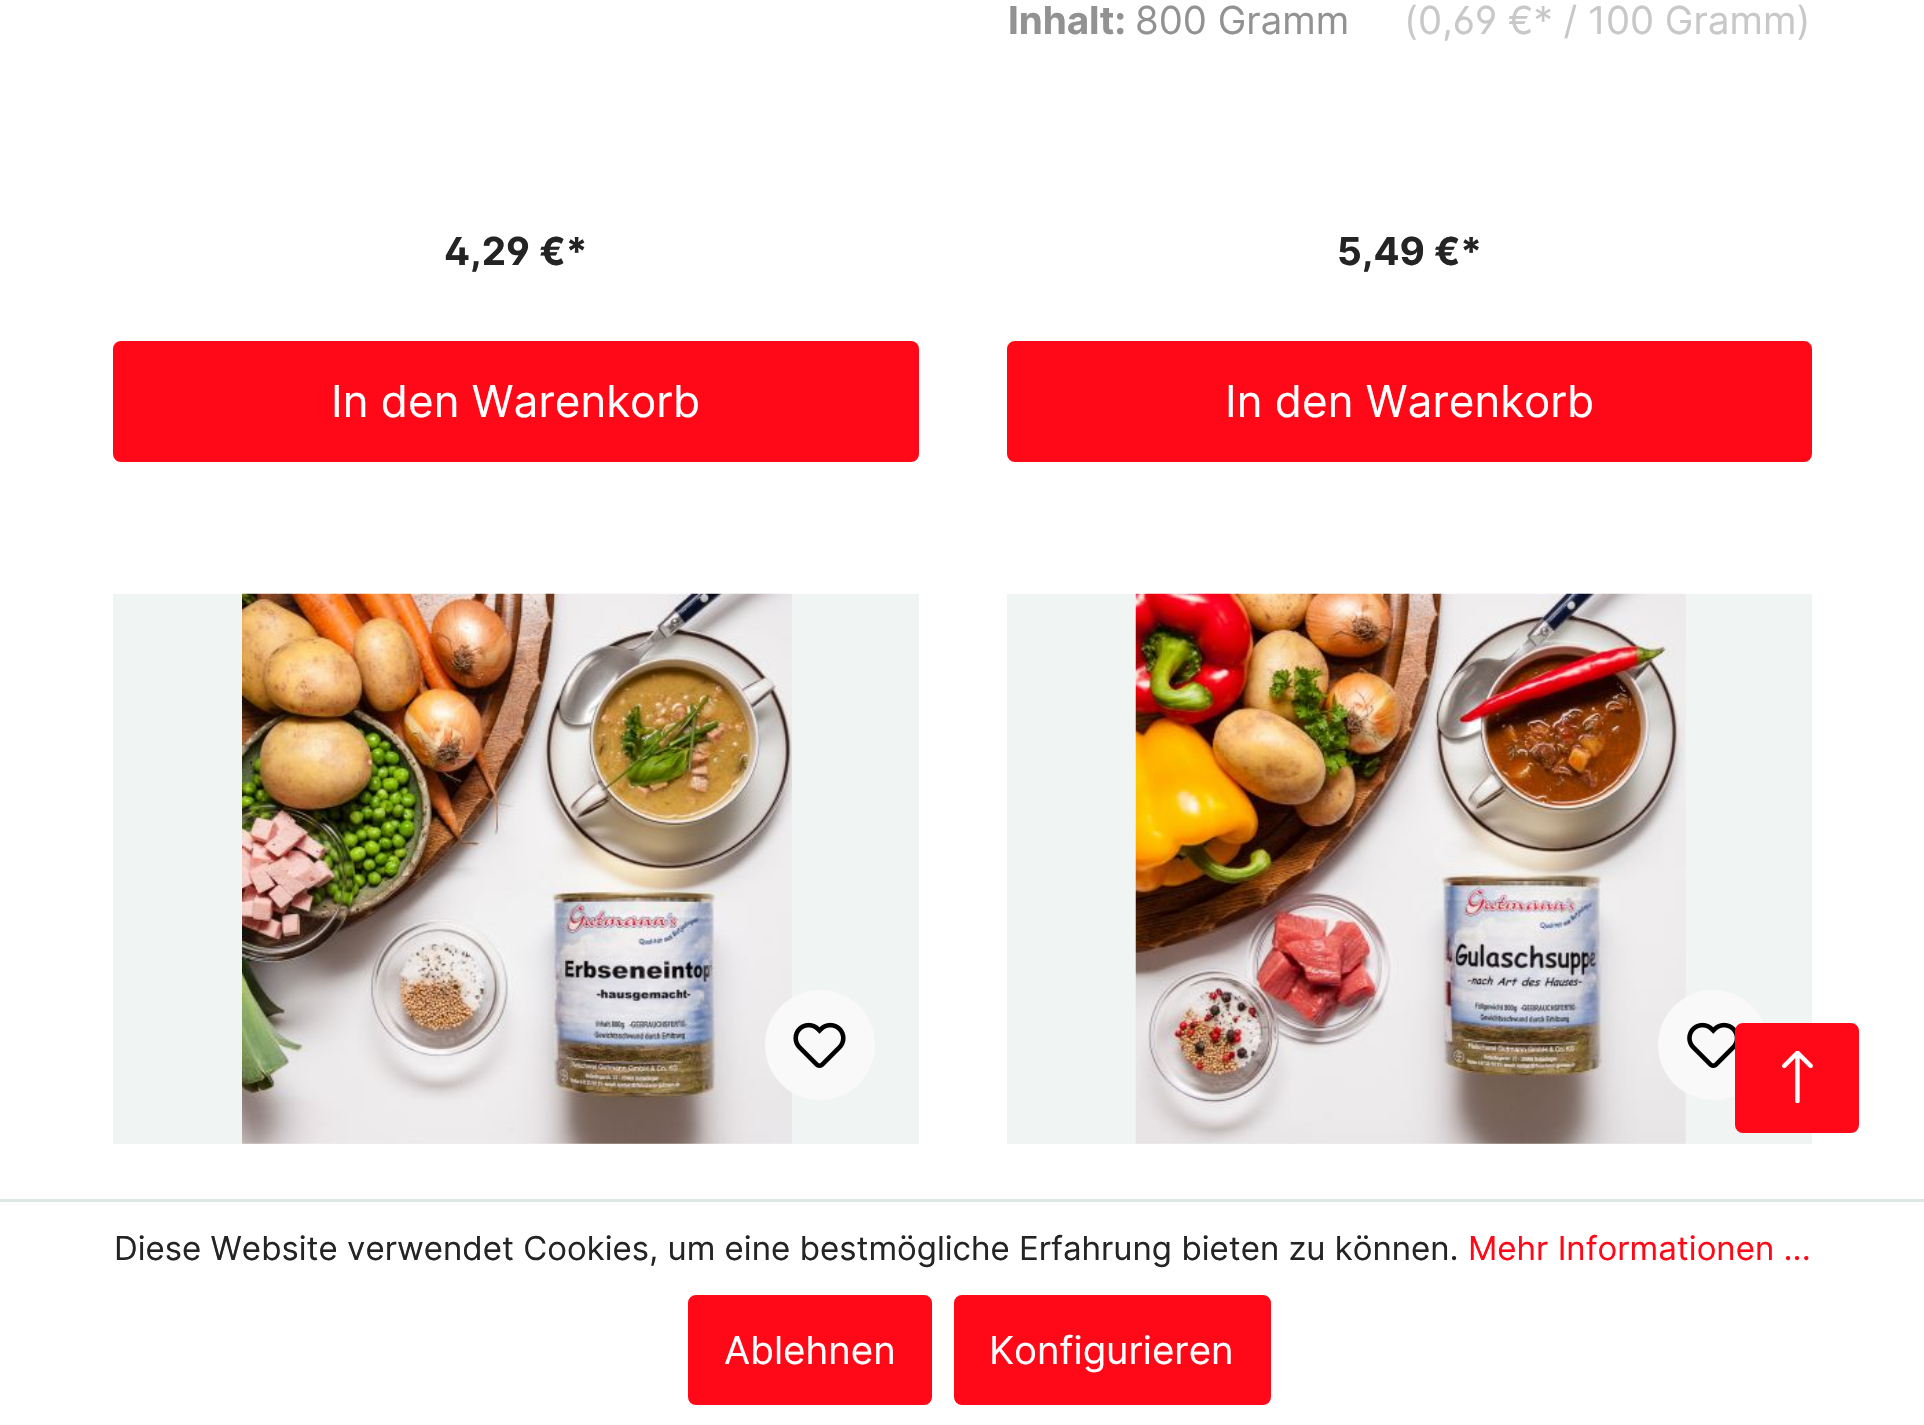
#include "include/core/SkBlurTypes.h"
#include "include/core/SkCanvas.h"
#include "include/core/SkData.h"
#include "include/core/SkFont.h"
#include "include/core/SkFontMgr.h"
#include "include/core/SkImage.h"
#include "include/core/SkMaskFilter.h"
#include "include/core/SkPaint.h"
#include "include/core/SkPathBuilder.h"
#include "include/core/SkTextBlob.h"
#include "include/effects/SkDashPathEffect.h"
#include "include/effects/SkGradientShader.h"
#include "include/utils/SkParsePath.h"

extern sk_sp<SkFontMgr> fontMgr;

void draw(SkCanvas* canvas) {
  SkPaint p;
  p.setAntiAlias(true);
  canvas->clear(SK_ColorWHITE);
  p.setColor(SkColorSetRGB(255, 8, 23));
  canvas->drawRoundRect(SkRect::MakeLTRB(114.5f, 342.5f, 917.5f, 460.5f), 6.5f, 6.5f, p);
  p.setStyle(SkPaint::kStroke_Style);
  p.setStrokeWidth(3);
  canvas->drawRoundRect(SkRect::MakeLTRB(114.5f, 342.5f, 917.5f, 460.5f), 6.5f, 6.5f, p);
  p.setStyle(SkPaint::kFill_Style);
  canvas->drawRoundRect(SkRect::MakeLTRB(1008.5f, 342.5f, 1810.5f, 460.5f), 6.5f, 6.5f, p);
  p.setStyle(SkPaint::kStroke_Style);
  canvas->drawRoundRect(SkRect::MakeLTRB(1008.5f, 342.5f, 1810.5f, 460.5f), 6.5f, 6.5f, p);
  p.setStyle(SkPaint::kFill_Style);
  p.setColor(SkColorSetRGB(240, 245, 243));
  canvas->drawRect(SkRect::MakeLTRB(113, 594, 919, 1144), p);
  canvas->drawImageRect(SkImages::DeferredFromEncodedData(SkData::MakeFromFileName("images/1.png")), SkRect::MakeLTRB(242, 593, 792, 1144), SkSamplingOptions());
  p.setColor(SkColorSetRGB(249, 249, 249));
  canvas->drawCircle(820, 1045, 55, p);
  canvas->drawImageRect(SkImages::DeferredFromEncodedData(SkData::MakeFromFileName("images/2.png")), SkRect::MakeLTRB(793, 1022, 846, 1068), SkSamplingOptions());
  p.setColor(SkColorSetRGB(240, 245, 243));
  canvas->drawRect(SkRect::MakeLTRB(1007, 594, 1812, 1144), p);
  canvas->drawImageRect(SkImages::DeferredFromEncodedData(SkData::MakeFromFileName("images/3.png")), SkRect::MakeLTRB(1135, 593, 1686, 1144), SkSamplingOptions());
  p.setColor(SkColorSetRGB(249, 249, 249));
  canvas->drawCircle(1713, 1045, 55, p);
  canvas->drawImageRect(SkImages::DeferredFromEncodedData(SkData::MakeFromFileName("images/4.png")), SkRect::MakeLTRB(1687, 1022, 1736, 1068), SkSamplingOptions());
  p.setColor(SkColorSetRGB(255, 8, 23));
  canvas->drawRoundRect(SkRect::MakeLTRB(1736.5f, 1024.5f, 1857.5f, 1131.5f), 6.5f, 6.5f, p);
  p.setStyle(SkPaint::kStroke_Style);
  canvas->drawRoundRect(SkRect::MakeLTRB(1736.5f, 1024.5f, 1857.5f, 1131.5f), 6.5f, 6.5f, p);
  canvas->drawImageRect(SkImages::DeferredFromEncodedData(SkData::MakeFromFileName("images/5.png")), SkRect::MakeLTRB(1782, 1051, 1813, 1103), SkSamplingOptions());
  p.setStyle(SkPaint::kFill_Style);
  p.setColor(SkColorSetRGB(222, 232, 227));
  canvas->drawRect(SkRect::MakeLTRB(0, 1199, 1924, 1202), p);
  p.setColor(SkColorSetRGB(255, 8, 23));
  canvas->drawRoundRect(SkRect::MakeLTRB(689.5f, 1296.5f, 930.5f, 1403.5f), 6.5f, 6.5f, p);
  p.setStyle(SkPaint::kStroke_Style);
  canvas->drawRoundRect(SkRect::MakeLTRB(689.5f, 1296.5f, 930.5f, 1403.5f), 6.5f, 6.5f, p);
  p.setStyle(SkPaint::kFill_Style);
  canvas->drawRoundRect(SkRect::MakeLTRB(955.5f, 1296.5f, 1269.5f, 1403.5f), 6.5f, 6.5f, p);
  p.setStyle(SkPaint::kStroke_Style);
  canvas->drawRoundRect(SkRect::MakeLTRB(955.5f, 1296.5f, 1269.5f, 1403.5f), 6.5f, 6.5f, p);
  SkFont font1(fontMgr->matchFamilyStyle("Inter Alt", SkFontStyle::Bold()), 38.5f);
  font1.setSubpixel(true);
  p.setStyle(SkPaint::kFill_Style);
  p.setColor(SkColorSetRGB(36, 36, 36));
  canvas->drawString("4,29 €*", 444, 265, font1, p);
  SkFont font2(fontMgr->matchFamilyStyle("Inter", SkFontStyle::Normal()), 44);
  font2.setSubpixel(true);
  p.setColor(SK_ColorWHITE);
  canvas->drawString("In den Warenkorb", 331, 417, font2, p);
  SkFont font3(fontMgr->matchFamilyStyle("Inter", SkFontStyle::Bold()), 38.5f);
  font3.setSubpixel(true);
  p.setColor(SkColorSetRGB(146, 146, 146));
  canvas->drawString("Inhalt:", 1008, 34, font3, p);
  SkFont font4(fontMgr->matchFamilyStyle("Inter", SkFontStyle::Normal()), 38.5f);
  font4.setSubpixel(true);
  canvas->drawString("800 Gramm", 1135, 34, font4, p);
  SkFont font5(fontMgr->matchFamilyStyle("Inter Alt", SkFontStyle::Normal()), 38.5f);
  font5.setSubpixel(true);
  p.setColor(SkColorSetRGB(200, 200, 200));
  canvas->drawString("(0,69 €* / 100 Gramm)", 1404, 34, font5, p);
  p.setColor(SkColorSetRGB(36, 36, 36));
  canvas->drawString("5,49 €*", 1337, 265, font3, p);
  p.setColor(SK_ColorWHITE);
  canvas->drawString("In den Warenkorb", 1225, 417, font2, p);
  SkFont font6(fontMgr->matchFamilyStyle("Inter", SkFontStyle::Normal()), 33);
  font6.setSubpixel(true);
  p.setColor(SkColorSetRGB(36, 36, 36));
  canvas->drawString("Diese Website verwendet Cookies, um eine bestmögliche Erfahrung bieten zu können.", 114, 1260, font6, p);
  p.setColor(SkColorSetRGB(255, 8, 23));
  canvas->drawString("Mehr Informationen ...", 1468, 1260, font6, p);
  p.setColor(SK_ColorWHITE);
  canvas->drawString("Ablehnen", 724, 1364, font4, p);
  canvas->drawString("Konfigurieren", 989, 1364, font4, p);
}
